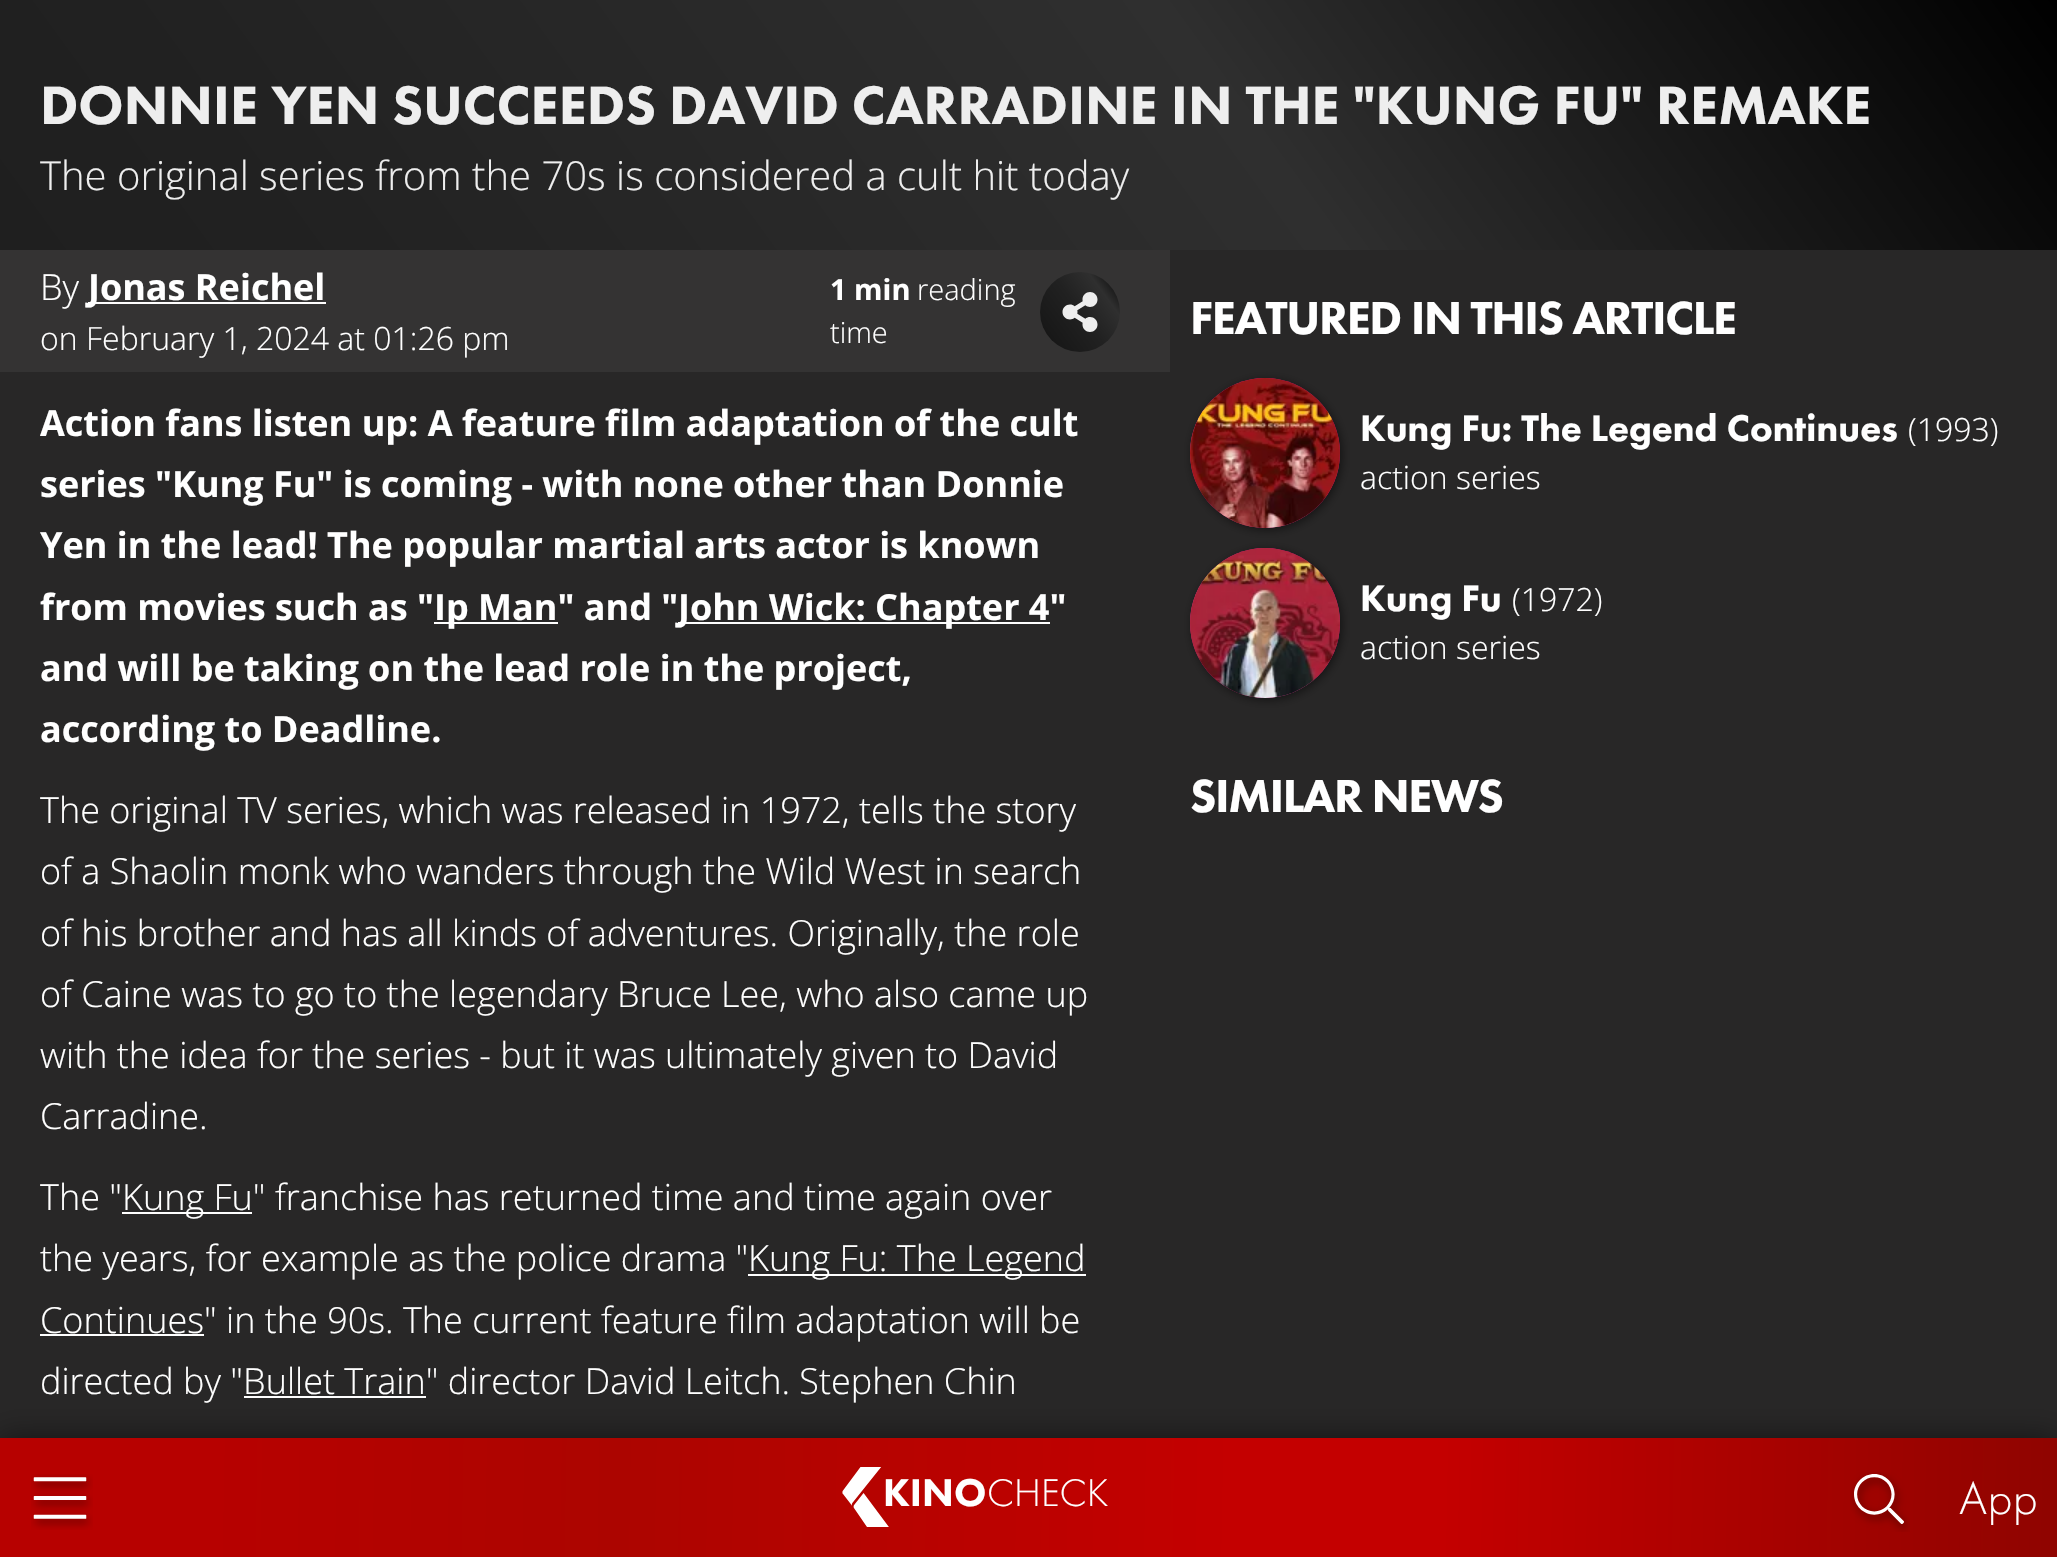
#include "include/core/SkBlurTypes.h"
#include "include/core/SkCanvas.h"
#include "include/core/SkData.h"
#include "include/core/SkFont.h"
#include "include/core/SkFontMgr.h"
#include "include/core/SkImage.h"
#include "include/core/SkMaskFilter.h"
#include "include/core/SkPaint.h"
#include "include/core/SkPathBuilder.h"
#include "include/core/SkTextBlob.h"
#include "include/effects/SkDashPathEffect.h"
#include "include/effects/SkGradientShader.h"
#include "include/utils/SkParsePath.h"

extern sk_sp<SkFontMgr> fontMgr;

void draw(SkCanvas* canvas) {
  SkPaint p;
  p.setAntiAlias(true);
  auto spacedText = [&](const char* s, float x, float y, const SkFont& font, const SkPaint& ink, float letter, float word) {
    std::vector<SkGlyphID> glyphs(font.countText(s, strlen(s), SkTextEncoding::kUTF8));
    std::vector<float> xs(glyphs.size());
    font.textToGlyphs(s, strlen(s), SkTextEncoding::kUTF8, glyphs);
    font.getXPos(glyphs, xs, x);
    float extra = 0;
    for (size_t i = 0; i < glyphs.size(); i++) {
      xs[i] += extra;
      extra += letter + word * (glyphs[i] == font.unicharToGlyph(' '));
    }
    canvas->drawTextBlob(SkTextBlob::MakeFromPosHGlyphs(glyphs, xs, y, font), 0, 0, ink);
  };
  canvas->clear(SK_ColorWHITE);
  {
    const SkColor colors[] = {SK_ColorBLACK, SkColorSetRGB(24, 24, 24), SkColorSetRGB(33, 33, 33), SkColorSetRGB(47, 47, 47), SK_ColorBLACK};
    const float stops[] = {0, 0.16f, 0.5f, 0.77f, 1};
    const SkPoint ends[] = {{-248, 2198}, {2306, 342}};
    p.setShader(SkGradientShader::MakeLinear(ends, colors, stops, 5, SkTileMode::kClamp));
    p.setAlpha(255);
  }
  canvas->drawRect(SkRect::MakeLTRB(0, 0, 2057, 250), p);
  p.setShader(nullptr);
  p.setColor(SkColorSetRGB(40, 39, 39));
  canvas->drawRect(SkRect::MakeLTRB(0, 250, 2057, 1438), p);
  p.setColor(SkColorSetRGB(52, 51, 51));
  canvas->drawRect(SkRect::MakeLTRB(0, 250, 1170, 372), p);
  p.setColor(SK_ColorWHITE);
  canvas->drawRect(SkRect::MakeLTRB(88, 302, 326, 304), p);
  {
    const SkColor colors[] = {SK_ColorBLACK, SkColorSetRGB(24, 24, 24), SkColorSetRGB(33, 33, 33), SkColorSetRGB(47, 47, 47), SK_ColorBLACK};
    const float stops[] = {0, 0.16f, 0.5f, 0.77f, 1};
    const SkPoint ends[] = {{1035, 345}, {1125, 279}};
    p.setShader(SkGradientShader::MakeLinear(ends, colors, stops, 5, SkTileMode::kClamp));
    p.setAlpha(255);
  }
  canvas->drawCircle(1080, 312, 40, p);
  canvas->drawImageRect(SkImages::DeferredFromEncodedData(SkData::MakeFromFileName("images/1.png")), SkRect::MakeLTRB(1062, 292, 1098, 332), SkSamplingOptions());
  p.setShader(nullptr);
  p.setColor(SK_ColorWHITE);
  canvas->drawRect(SkRect::MakeLTRB(434, 622, 558, 624), p);
  canvas->drawRect(SkRect::MakeLTRB(678, 622, 1050, 624), p);
  canvas->drawRect(SkRect::MakeLTRB(122, 1212, 252, 1214), p);
  canvas->drawRect(SkRect::MakeLTRB(748, 1274, 1086, 1276), p);
  canvas->drawRect(SkRect::MakeLTRB(40, 1334, 204, 1336), p);
  canvas->drawRect(SkRect::MakeLTRB(244, 1396, 426, 1398), p);
  p.setColor(SkColorSetARGB(128, 0, 0, 0));
  p.setMaskFilter(SkMaskFilter::MakeBlur(kNormal_SkBlurStyle, 5));
  canvas->drawRoundRect(SkRect::MakeLTRB(1192, 380, 1342, 530), 75, 75, p);
  p.setMaskFilter(nullptr);
  {
    const SkColor colors[] = {SkColorSetRGB(194, 20, 118), SkColorSetRGB(208, 33, 110), SkColorSetRGB(226, 57, 150), SkColorSetRGB(236, 64, 158), SkColorSetRGB(233, 59, 149), SkColorSetRGB(216, 27, 128), SkColorSetRGB(136, 14, 132)};
    const float stops[] = {0.06f, 0.26f, 0.41f, 0.48f, 0.58f, 0.71f, 1};
    p.setShader(SkGradientShader::MakeRadial({1184, 521}, 212, colors, stops, 7, SkTileMode::kClamp));
    p.setAlpha(255);
  }
  canvas->drawCircle(1265, 453, 75, p);
  canvas->drawImageRect(SkImages::DeferredFromEncodedData(SkData::MakeFromFileName("images/2.png")), SkRect::MakeLTRB(1190, 378, 1340, 528), SkSamplingOptions());
  p.setShader(nullptr);
  p.setColor(SkColorSetARGB(128, 0, 0, 0));
  p.setMaskFilter(SkMaskFilter::MakeBlur(kNormal_SkBlurStyle, 5));
  canvas->drawRoundRect(SkRect::MakeLTRB(1192, 550, 1342, 700), 75, 75, p);
  p.setMaskFilter(nullptr);
  {
    const SkColor colors[] = {SkColorSetRGB(194, 20, 118), SkColorSetRGB(208, 33, 110), SkColorSetRGB(226, 57, 150), SkColorSetRGB(236, 64, 158), SkColorSetRGB(233, 59, 149), SkColorSetRGB(216, 27, 128), SkColorSetRGB(136, 14, 132)};
    const float stops[] = {0.06f, 0.26f, 0.41f, 0.48f, 0.58f, 0.71f, 1};
    p.setShader(SkGradientShader::MakeRadial({1184, 691}, 212, colors, stops, 7, SkTileMode::kClamp));
    p.setAlpha(255);
  }
  canvas->drawCircle(1265, 623, 75, p);
  canvas->drawImageRect(SkImages::DeferredFromEncodedData(SkData::MakeFromFileName("images/3.png")), SkRect::MakeLTRB(1190, 548, 1340, 698), SkSamplingOptions());
  p.setShader(nullptr);
  p.setColor(SkColorSetARGB(128, 0, 0, 0));
  p.setMaskFilter(SkMaskFilter::MakeBlur(kNormal_SkBlurStyle, 15));
  canvas->drawRect(SkRect::MakeLTRB(0, 1438, 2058, 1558), p);
  p.setMaskFilter(nullptr);
  {
    const SkColor colors[] = {SkColorSetRGB(183, 1, 0), SkColorSetRGB(172, 5, 0), SkColorSetRGB(196, 0, 0), SkColorSetRGB(196, 0, 0), SkColorSetRGB(143, 4, 0)};
    const float stops[] = {0.1f, 0.3f, 0.6f, 0.7f, 1};
    const SkPoint ends[] = {{-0.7f, 1480}, {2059, 1516}};
    p.setShader(SkGradientShader::MakeLinear(ends, colors, stops, 5, SkTileMode::kClamp));
    p.setAlpha(255);
  }
  canvas->drawRect(SkRect::MakeLTRB(0, 1438, 2057, 1557), p);
  canvas->drawImageRect(SkImages::DeferredFromEncodedData(SkData::MakeFromFileName("images/4.png")), SkRect::MakeLTRB(31, 1474, 93, 1530), SkSamplingOptions());
  canvas->drawImageRect(SkImages::DeferredFromEncodedData(SkData::MakeFromFileName("images/6.png")), SkRect::MakeLTRB(1850, 1472, 1910, 1532), SkSamplingOptions());
  SkFont font1(fontMgr->matchFamilyStyle("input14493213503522", SkFontStyle::Normal()), 56);
  font1.setSubpixel(true);
  p.setShader(nullptr);
  p.setColor(SkColorSetRGB(238, 238, 238));
  canvas->drawString("DONNIE YEN SUCCEEDS DAVID CARRADINE IN THE \"KUNG FU\" REMAKE", 40, 124, font1, p);
  SkFont font2(fontMgr->matchFamilyStyle("Open Sans", SkFontStyle(300, SkFontStyle::kNormal_Width, SkFontStyle::kUpright_Slant)), 40);
  font2.setSubpixel(true);
  canvas->drawString("The original series from the 70s is considered a cult hit today", 40, 190, font2, p);
  SkFont font3(fontMgr->matchFamilyStyle("Open Sans", SkFontStyle(300, SkFontStyle::kNormal_Width, SkFontStyle::kUpright_Slant)), 36);
  font3.setSubpixel(true);
  p.setColor(SK_ColorWHITE);
  canvas->drawString("By", 40, 300, font3, p);
  SkFont font4(fontMgr->matchFamilyStyle("Open Sans", SkFontStyle::Bold()), 36);
  font4.setSubpixel(true);
  canvas->drawString("Jonas Reichel", 88, 300, font4, p);
  SkFont font5(fontMgr->matchFamilyStyle("Open Sans", SkFontStyle(300, SkFontStyle::kNormal_Width, SkFontStyle::kUpright_Slant)), 32);
  font5.setSubpixel(true);
  canvas->drawString("on February 1, 2024 at 01:26 pm", 40, 350, font5, p);
  SkFont font6(fontMgr->matchFamilyStyle("Open Sans", SkFontStyle::Bold()), 29);
  font6.setSubpixel(true);
  canvas->drawString("1 min", 830, 300, font6, p);
  SkFont font7(fontMgr->matchFamilyStyle("Open Sans", SkFontStyle(300, SkFontStyle::kNormal_Width, SkFontStyle::kUpright_Slant)), 29);
  font7.setSubpixel(true);
  canvas->drawString("reading", 917, 300, font7, p);
  canvas->drawString("time", 830, 343, font7, p);
  canvas->drawString("Action fans listen up: A feature film adaptation of the cult", 40, 436, font4, p);
  canvas->drawString("series \"Kung Fu\" is coming - with none other than Donnie", 40, 497, font4, p);
  canvas->drawString("Yen in the lead! The popular martial arts actor is known", 40, 558, font4, p);
  canvas->drawString("from movies such as \"", 40, 620, font4, p);
  canvas->drawString("Ip Man\" and \"", 434, 620, font4, p);
  canvas->drawString("John Wick: Chapter 4\"", 678, 620, font4, p);
  canvas->drawString("and will be taking on the lead role in the project,", 40, 681, font4, p);
  canvas->drawString("according to Deadline.", 40, 742, font4, p);
  canvas->drawString("The original TV series, which was released in 1972, tells the story", 40, 823, font3, p);
  canvas->drawString("of a Shaolin monk who wanders through the Wild West in search", 40, 884, font3, p);
  canvas->drawString("of his brother and has all kinds of adventures. Originally, the role", 40, 946, font3, p);
  canvas->drawString("of Caine was to go to the legendary Bruce Lee, who also came up", 40, 1007, font3, p);
  canvas->drawString("with the idea for the series - but it was ultimately given to David", 40, 1068, font3, p);
  canvas->drawString("Carradine.", 40, 1129, font3, p);
  canvas->drawString("The \"", 40, 1210, font3, p);
  canvas->drawString("Kung Fu\" franchise has returned time and time again over", 122, 1210, font3, p);
  canvas->drawString("the years, for example as the police drama \"", 40, 1271, font3, p);
  canvas->drawString("Kung Fu: The Legend", 748, 1271, font3, p);
  canvas->drawString("Continues\" in the 90s. The current feature film adaptation will be", 40, 1333, font3, p);
  canvas->drawString("directed by \"Bullet Train\" director David Leitch. Stephen Chin", 40, 1394, font3, p);
  SkFont font8(fontMgr->matchFamilyStyle("input14493213503522", SkFontStyle::Normal()), 48);
  font8.setSubpixel(true);
  spacedText("FEATURED IN THIS ARTICLE", 1190, 334, font8, p, -1.4f, 0);
  SkFont font9(fontMgr->matchFamilyStyle("input14493213503522", SkFontStyle::Normal()), 38.4f);
  font9.setSubpixel(true);
  canvas->drawString("Kung Fu: The Legend Continues", 1360, 441, font9, p);
  canvas->drawString("(1993)", 1908, 441, font5, p);
  canvas->drawString("action series", 1360, 489, font5, p);
  canvas->drawString("Kung Fu", 1360, 611, font9, p);
  canvas->drawString("(1972)", 1512, 611, font5, p);
  canvas->drawString("action series", 1360, 659, font5, p);
  spacedText("SIMILAR NEWS", 1190, 812, font8, p, -1.4f, 0);
  SkFont font10(fontMgr->matchFamilyStyle("input14493213503522", SkFontStyle::Normal()), 40);
  font10.setSubpixel(true);
  canvas->drawString("KINO", 883, 1506, font10, p);
  canvas->drawImageRect(SkImages::DeferredFromEncodedData(SkData::MakeFromFileName("images/5.png")), SkRect::MakeLTRB(842, 1467, 889, 1527), SkSamplingOptions());
  SkFont font11(fontMgr->matchFamilyStyle("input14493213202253", SkFontStyle::Normal()), 40);
  font11.setSubpixel(true);
  canvas->drawString("CHECK", 987, 1506, font11, p);
  SkFont font12(fontMgr->matchFamilyStyle("input14493213202253", SkFontStyle::Normal()), 48);
  font12.setSubpixel(true);
  spacedText("App", 1959, 1514, font12, p, 0.5f, 0);
}
